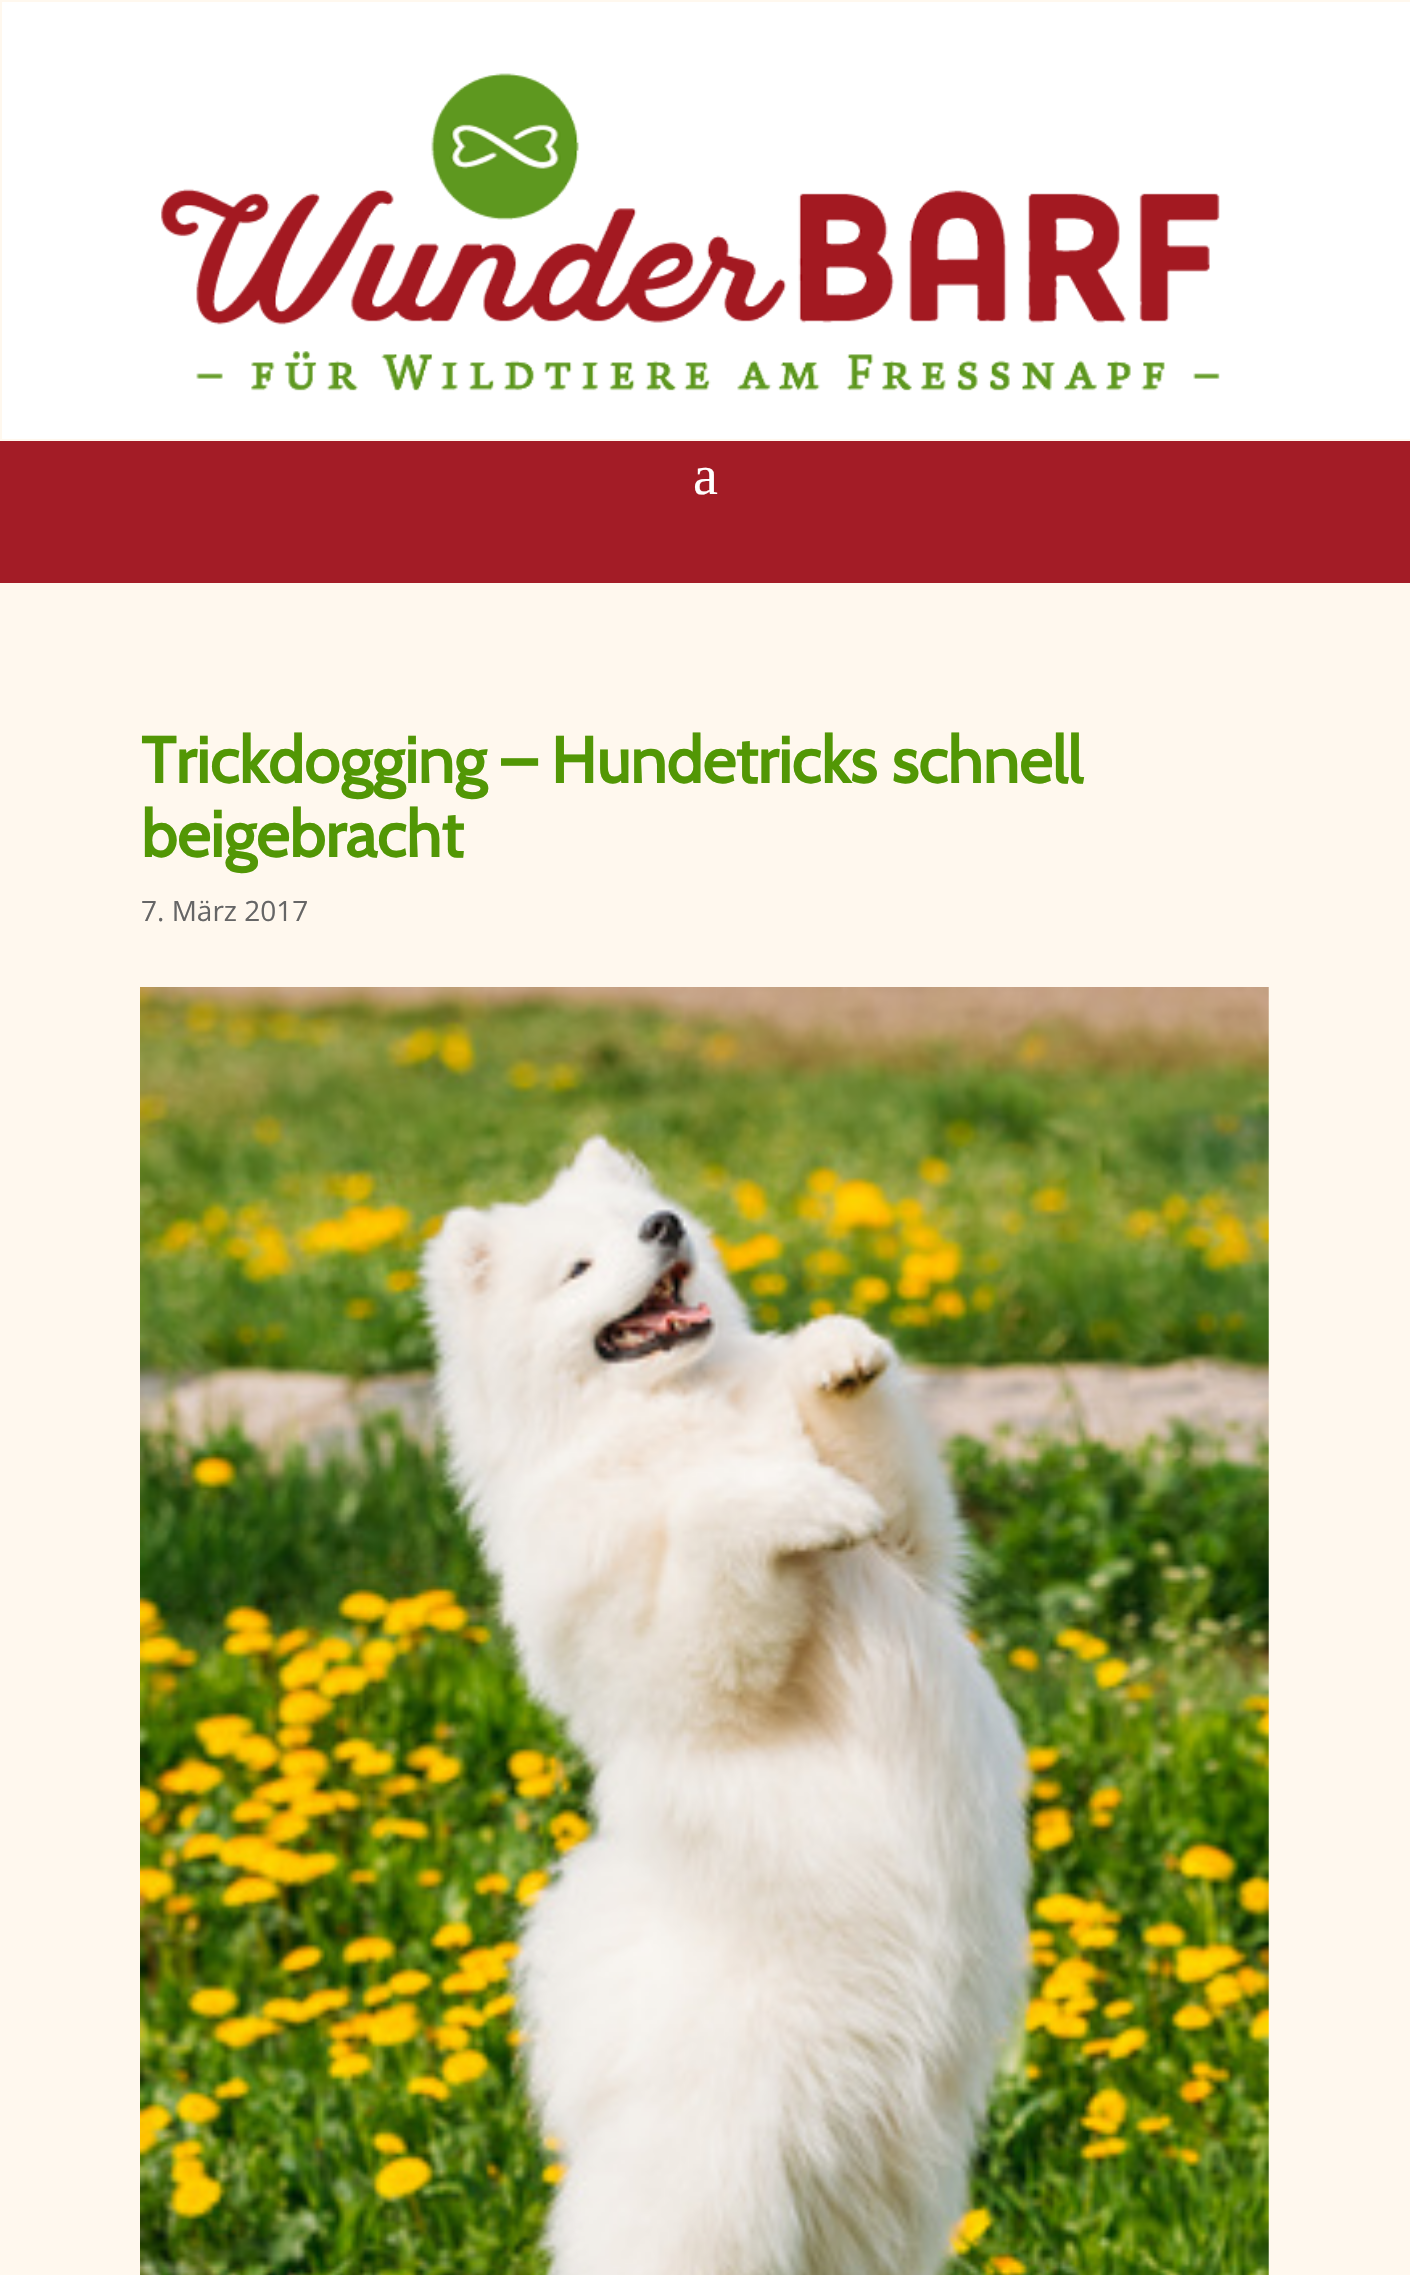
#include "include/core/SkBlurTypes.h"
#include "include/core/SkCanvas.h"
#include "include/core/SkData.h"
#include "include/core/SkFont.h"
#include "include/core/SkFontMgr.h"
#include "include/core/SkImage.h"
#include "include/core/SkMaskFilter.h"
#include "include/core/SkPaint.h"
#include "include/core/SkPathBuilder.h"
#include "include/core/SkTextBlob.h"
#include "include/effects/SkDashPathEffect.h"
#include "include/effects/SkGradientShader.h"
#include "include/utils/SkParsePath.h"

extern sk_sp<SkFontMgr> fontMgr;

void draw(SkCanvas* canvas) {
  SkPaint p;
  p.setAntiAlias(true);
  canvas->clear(SkColorSetRGB(255, 248, 238));
  p.setColor(SK_ColorWHITE);
  canvas->drawRect(SkRect::MakeLTRB(2, 2, 1410, 439), p);
  canvas->drawImageRect(SkImages::DeferredFromEncodedData(SkData::MakeFromFileName("images/1.png")), SkRect::MakeLTRB(161, 73, 1220, 391), SkSamplingOptions());
  p.setColor(SkColorSetRGB(163, 28, 38));
  canvas->drawRect(SkRect::MakeLTRB(0, 441, 1410, 583), p);
  canvas->drawImageRect(SkImages::DeferredFromEncodedData(SkData::MakeFromFileName("images/2.png")), SkRect::MakeLTRB(140, 987, 1269, 2275), SkSamplingOptions());
  SkFont font1(fontMgr->matchFamilyStyle("Liberation Serif", SkFontStyle::Normal()), 56);
  font1.setSubpixel(true);
  p.setColor(SK_ColorWHITE);
  canvas->drawString("a", 693, 494, font1, p);
  SkFont font2(fontMgr->matchFamilyStyle("Cabin", SkFontStyle::Bold()), 64.75f);
  font2.setSubpixel(true);
  p.setColor(SkColorSetRGB(82, 151, 5));
  canvas->drawString("Trickdogging – Hundetricks schnell", 141, 783, font2, p);
  canvas->drawString("beigebracht", 141, 857, font2, p);
  SkFont font3(fontMgr->matchFamilyStyle("Open Sans", SkFontStyle::Normal()), 28);
  font3.setSubpixel(true);
  p.setColor(SkColorSetRGB(102, 102, 102));
  canvas->drawString("7. März 2017", 141, 921, font3, p);
}
